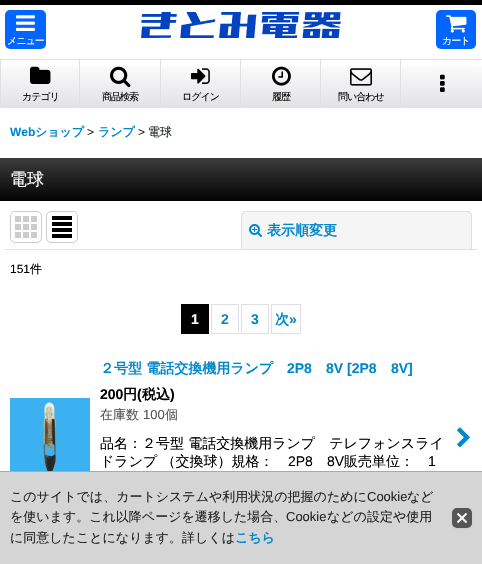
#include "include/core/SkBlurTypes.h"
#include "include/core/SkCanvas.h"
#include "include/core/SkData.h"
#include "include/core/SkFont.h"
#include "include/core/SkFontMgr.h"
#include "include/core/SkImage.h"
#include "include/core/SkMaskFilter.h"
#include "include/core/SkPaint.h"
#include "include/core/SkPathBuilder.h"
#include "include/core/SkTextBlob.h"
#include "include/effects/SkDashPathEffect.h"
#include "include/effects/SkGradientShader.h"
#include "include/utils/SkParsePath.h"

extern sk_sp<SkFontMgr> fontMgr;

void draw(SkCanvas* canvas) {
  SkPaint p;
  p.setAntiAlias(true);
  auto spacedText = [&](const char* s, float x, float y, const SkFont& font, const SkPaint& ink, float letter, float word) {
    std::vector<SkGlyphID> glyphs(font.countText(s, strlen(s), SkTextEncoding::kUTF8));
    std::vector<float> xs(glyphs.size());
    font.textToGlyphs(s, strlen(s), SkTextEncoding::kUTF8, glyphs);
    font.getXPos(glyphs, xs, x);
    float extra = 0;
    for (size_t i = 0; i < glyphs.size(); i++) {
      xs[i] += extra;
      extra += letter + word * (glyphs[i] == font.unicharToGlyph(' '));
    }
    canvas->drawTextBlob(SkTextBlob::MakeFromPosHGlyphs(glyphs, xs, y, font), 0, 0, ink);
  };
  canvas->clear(SK_ColorWHITE);
  p.setColor(SK_ColorBLACK);
  canvas->drawRect(SkRect::MakeLTRB(0, 0, 482, 5), p);
  canvas->drawImageRect(SkImages::DeferredFromEncodedData(SkData::MakeFromFileName("images/1.png")), SkRect::MakeLTRB(141, 12, 341, 38), SkSamplingOptions());
  p.setColor(SkColorSetRGB(1, 102, 255));
  canvas->drawRoundRect(SkRect::MakeLTRB(5, 10, 46, 49), 5, 5, p);
  canvas->drawImageRect(SkImages::DeferredFromEncodedData(SkData::MakeFromFileName("images/2.png")), SkRect::MakeLTRB(16, 15, 35, 31), SkSamplingOptions());
  canvas->drawRoundRect(SkRect::MakeLTRB(436, 10, 476, 49), 5, 5, p);
  canvas->drawImageRect(SkImages::DeferredFromEncodedData(SkData::MakeFromFileName("images/3.png")), SkRect::MakeLTRB(446, 15, 467, 33), SkSamplingOptions());
  p.setColor(SkColorSetRGB(224, 223, 227));
  canvas->drawRect(SkRect::MakeLTRB(0, 59, 482, 60), p);
  canvas->drawImageRect(SkImages::DeferredFromEncodedData(SkData::MakeFromFileName("images/4.png")), SkRect::MakeLTRB(1, 66, 79, 108), SkSamplingOptions());
  canvas->drawRect(SkRect::MakeLTRB(79, 60, 80, 108), p);
  canvas->drawRect(SkRect::MakeLTRB(0, 60, 1, 108), p);
  canvas->drawImageRect(SkImages::DeferredFromEncodedData(SkData::MakeFromFileName("images/5.png")), SkRect::MakeLTRB(30, 66, 51, 84), SkSamplingOptions());
  canvas->drawImageRect(SkImages::DeferredFromEncodedData(SkData::MakeFromFileName("images/6.png")), SkRect::MakeLTRB(80, 66, 160, 108), SkSamplingOptions());
  canvas->drawRect(SkRect::MakeLTRB(160, 60, 161, 108), p);
  canvas->drawImageRect(SkImages::DeferredFromEncodedData(SkData::MakeFromFileName("images/7.png")), SkRect::MakeLTRB(110, 66, 131, 88), SkSamplingOptions());
  canvas->drawImageRect(SkImages::DeferredFromEncodedData(SkData::MakeFromFileName("images/8.png")), SkRect::MakeLTRB(161, 66, 240, 108), SkSamplingOptions());
  canvas->drawRect(SkRect::MakeLTRB(240, 60, 241, 108), p);
  canvas->drawImageRect(SkImages::DeferredFromEncodedData(SkData::MakeFromFileName("images/9.png")), SkRect::MakeLTRB(191, 68, 210, 84), SkSamplingOptions());
  canvas->drawImageRect(SkImages::DeferredFromEncodedData(SkData::MakeFromFileName("images/8.png")), SkRect::MakeLTRB(241, 66, 320, 108), SkSamplingOptions());
  canvas->drawRect(SkRect::MakeLTRB(320, 60, 321, 108), p);
  canvas->drawImageRect(SkImages::DeferredFromEncodedData(SkData::MakeFromFileName("images/10.png")), SkRect::MakeLTRB(272, 66, 291, 86), SkSamplingOptions());
  canvas->drawImageRect(SkImages::DeferredFromEncodedData(SkData::MakeFromFileName("images/8.png")), SkRect::MakeLTRB(321, 66, 400, 108), SkSamplingOptions());
  canvas->drawRect(SkRect::MakeLTRB(400, 60, 401, 108), p);
  canvas->drawImageRect(SkImages::DeferredFromEncodedData(SkData::MakeFromFileName("images/11.png")), SkRect::MakeLTRB(350, 68, 372, 86), SkSamplingOptions());
  canvas->drawImageRect(SkImages::DeferredFromEncodedData(SkData::MakeFromFileName("images/12.png")), SkRect::MakeLTRB(401, 66, 482, 108), SkSamplingOptions());
  canvas->drawImageRect(SkImages::DeferredFromEncodedData(SkData::MakeFromFileName("images/13.png")), SkRect::MakeLTRB(440, 74, 445, 92), SkSamplingOptions());
  canvas->drawImageRect(SkImages::DeferredFromEncodedData(SkData::MakeFromFileName("images/14.png")), SkRect::MakeLTRB(0, 158, 482, 201), SkSamplingOptions());
  canvas->drawRect(SkRect::MakeLTRB(5, 249, 477, 250), p);
  p.setStyle(SkPaint::kStroke_Style);
  p.setStrokeWidth(1);
  p.setColor(SkColorSetRGB(204, 204, 204));
  canvas->drawRoundRect(SkRect::MakeLTRB(10.5f, 211.5f, 41.5f, 242.5f), 4.5f, 4.5f, p);
  canvas->drawImageRect(SkImages::DeferredFromEncodedData(SkData::MakeFromFileName("images/15.png")), SkRect::MakeLTRB(15, 216, 37, 238), SkSamplingOptions());
  canvas->drawRoundRect(SkRect::MakeLTRB(46.5f, 211.5f, 77.5f, 242.5f), 4.5f, 4.5f, p);
  canvas->drawImageRect(SkImages::DeferredFromEncodedData(SkData::MakeFromFileName("images/16.png")), SkRect::MakeLTRB(52, 216, 72, 238), SkSamplingOptions());
  p.setStyle(SkPaint::kFill_Style);
  p.setColor(SkColorSetRGB(245, 245, 245));
  canvas->drawPath(SkPathBuilder().moveTo(246, 211).lineTo(467, 211).cubicTo(470, 211, 472, 213, 472, 216).lineTo(472, 249).lineTo(241, 249).lineTo(241, 216).cubicTo(241, 213, 243, 211, 246, 211).close().detach(), p);
  p.setColor(SkColorSetRGB(224, 223, 227));
  canvas->drawPath(SkPathBuilder(SkPathFillType::kEvenOdd).moveTo(246, 211).lineTo(467, 211).cubicTo(470, 211, 472, 213, 472, 216).lineTo(472, 249).lineTo(241, 249).lineTo(241, 216).cubicTo(241, 213, 243, 211, 246, 211).close().moveTo(246, 212).lineTo(467, 212).cubicTo(469, 212, 471, 214, 471, 216).lineTo(471, 249).lineTo(242, 249).lineTo(242, 216).cubicTo(242, 214, 244, 212, 246, 212).close().detach(), p);
  canvas->drawImageRect(SkImages::DeferredFromEncodedData(SkData::MakeFromFileName("images/17.png")), SkRect::MakeLTRB(249, 224, 262, 237), SkSamplingOptions());
  p.setColor(SK_ColorBLACK);
  canvas->drawRect(SkRect::MakeLTRB(181, 304, 209, 334), p);
  p.setStyle(SkPaint::kStroke_Style);
  p.setColor(SkColorSetRGB(224, 223, 227));
  canvas->drawRect(SkRect::MakeLTRB(211.5f, 304.5f, 238.5f, 333.5f), p);
  canvas->drawRect(SkRect::MakeLTRB(241.5f, 304.5f, 268.5f, 333.5f), p);
  canvas->drawRect(SkRect::MakeLTRB(271.5f, 304.5f, 300.5f, 333.5f), p);
  canvas->drawImageRect(SkImages::DeferredFromEncodedData(SkData::MakeFromFileName("images/18.png")), SkRect::MakeLTRB(10, 398, 90, 471), SkSamplingOptions());
  canvas->drawImageRect(SkImages::DeferredFromEncodedData(SkData::MakeFromFileName("images/19.png")), SkRect::MakeLTRB(457, 427, 470, 448), SkSamplingOptions());
  p.setStyle(SkPaint::kFill_Style);
  p.setColor(SkColorSetRGB(213, 213, 213));
  canvas->drawRect(SkRect::MakeLTRB(0, 472, 482, 564), p);
  p.setColor(SkColorSetRGB(170, 170, 170));
  canvas->drawRect(SkRect::MakeLTRB(0, 471, 482, 472), p);
  p.setColor(SkColorSetARGB(13, 0, 0, 0));
  p.setMaskFilter(SkMaskFilter::MakeBlur(kNormal_SkBlurStyle, 1));
  canvas->drawRoundRect(SkRect::MakeLTRB(452, 509, 472, 529), 5, 5, p);
  p.setMaskFilter(nullptr);
  canvas->drawImageRect(SkImages::DeferredFromEncodedData(SkData::MakeFromFileName("images/20.png")), SkRect::MakeLTRB(452, 508, 472, 528), SkSamplingOptions());
  SkFont font1(fontMgr->matchFamilyStyle("WenQuanYi Zen Hei", SkFontStyle(500, SkFontStyle::kNormal_Width, SkFontStyle::kUpright_Slant)), 10);
  font1.setSubpixel(true);
  p.setColor(SK_ColorWHITE);
  spacedText("メニュー", 7, 44, font1, p, -1, 0);
  spacedText("カート", 442, 44, font1, p, -1, 0);
  p.setColor(SK_ColorBLACK);
  spacedText("カテゴリ", 22, 100, font1, p, -1, 0);
  spacedText("商品検索", 102, 100, font1, p, -1, 0);
  spacedText("ログイン", 182, 100, font1, p, -1, 0);
  spacedText("履歴", 272, 100, font1, p, -1, 0);
  spacedText("問い合わせ", 338, 100, font1, p, -1, 0);
  SkFont font2(fontMgr->matchFamilyStyle("Liberation Sans", SkFontStyle::Bold()), 12);
  font2.setSubpixel(true);
  p.setColor(SkColorSetRGB(0, 136, 204));
  canvas->drawString("Web", 10, 136, font2, p);
  SkFont font3(fontMgr->matchFamilyStyle("WenQuanYi Zen Hei", SkFontStyle::Bold()), 12);
  font3.setSubpixel(true);
  canvas->drawString("ショップ", 35, 136, font3, p);
  SkFont font4(fontMgr->matchFamilyStyle("Liberation Sans", SkFontStyle::Normal()), 12);
  font4.setSubpixel(true);
  p.setColor(SkColorSetRGB(33, 37, 41));
  canvas->drawString(">", 87, 136, font4, p);
  p.setColor(SkColorSetRGB(0, 136, 204));
  canvas->drawString("ランプ", 98, 136, font3, p);
  p.setColor(SkColorSetRGB(33, 37, 41));
  canvas->drawString(">", 138, 136, font4, p);
  SkFont font5(fontMgr->matchFamilyStyle("WenQuanYi Zen Hei", SkFontStyle(500, SkFontStyle::kNormal_Width, SkFontStyle::kUpright_Slant)), 12);
  font5.setSubpixel(true);
  canvas->drawString("電球", 148, 136, font5, p);
  SkFont font6(fontMgr->matchFamilyStyle("WenQuanYi Zen Hei", SkFontStyle(500, SkFontStyle::kNormal_Width, SkFontStyle::kUpright_Slant)), 17);
  font6.setSubpixel(true);
  p.setColor(SK_ColorWHITE);
  canvas->drawString("電球", 10, 185, font6, p);
  SkFont font7(fontMgr->matchFamilyStyle("WenQuanYi Zen Hei", SkFontStyle::Bold()), 14);
  font7.setSubpixel(true);
  p.setColor(SkColorSetRGB(0, 136, 204));
  canvas->drawString("表示順変更", 267, 235, font7, p);
  p.setColor(SK_ColorBLACK);
  canvas->drawString("151", 10, 273, font4, p);
  canvas->drawString("件", 30, 273, font5, p);
  SkFont font8(fontMgr->matchFamilyStyle("Liberation Sans", SkFontStyle::Bold()), 14);
  font8.setSubpixel(true);
  p.setColor(SK_ColorWHITE);
  canvas->drawString("1", 191, 324, font8, p);
  p.setColor(SkColorSetRGB(0, 136, 204));
  canvas->drawString("2", 221, 324, font8, p);
  canvas->drawString("3", 251, 324, font8, p);
  canvas->drawString("次", 275, 324, font7, p);
  canvas->drawString("»", 289, 324, font8, p);
  canvas->drawString("２号型 電話交換機用ランプ", 100, 373, font7, p);
  canvas->drawString("2P8", 287, 373, font8, p);
  canvas->drawString("8V [2P8", 326, 373, font8, p);
  canvas->drawString("8V]", 391, 373, font8, p);
  p.setColor(SK_ColorBLACK);
  canvas->drawString("200", 100, 399, font8, p);
  canvas->drawString("円", 123, 399, font7, p);
  canvas->drawString("(", 137, 399, font8, p);
  canvas->drawString("税込", 142, 399, font7, p);
  canvas->drawString(")", 170, 399, font8, p);
  SkFont font9(fontMgr->matchFamilyStyle("WenQuanYi Zen Hei", SkFontStyle(500, SkFontStyle::kNormal_Width, SkFontStyle::kUpright_Slant)), 13);
  font9.setSubpixel(true);
  p.setColor(SkColorSetRGB(85, 85, 85));
  canvas->drawString("在庫数", 100, 419, font9, p);
  SkFont font10(fontMgr->matchFamilyStyle("Liberation Sans", SkFontStyle::Normal()), 13);
  font10.setSubpixel(true);
  canvas->drawString("100", 143, 419, font10, p);
  canvas->drawString("個", 165, 419, font9, p);
  SkFont font11(fontMgr->matchFamilyStyle("WenQuanYi Zen Hei", SkFontStyle(500, SkFontStyle::kNormal_Width, SkFontStyle::kUpright_Slant)), 14);
  font11.setSubpixel(true);
  p.setColor(SK_ColorBLACK);
  canvas->drawString("品名：２号型 電話交換機用ランプ　テレフォンスライ", 100, 448, font11, p);
  canvas->drawString("ドランプ （交換球）規格：", 100, 466, font11, p);
  SkFont font12(fontMgr->matchFamilyStyle("Liberation Sans", SkFontStyle::Normal()), 14);
  font12.setSubpixel(true);
  canvas->drawString("2P8", 288, 466, font12, p);
  canvas->drawString("8V", 327, 466, font12, p);
  canvas->drawString("販売単位：", 344, 466, font11, p);
  canvas->drawString("1", 428, 466, font12, p);
  p.setColor(SkColorSetRGB(34, 34, 34));
  canvas->drawString("このサイトでは、カートシステムや利用状況の把握のために", 10, 501, font9, p);
  canvas->drawString("Cookie", 367, 501, font10, p);
  canvas->drawString("など", 407, 501, font9, p);
  canvas->drawString("を使います。これ以降ページを遷移した場合、", 10, 521, font9, p);
  canvas->drawString("Cookie", 286, 521, font10, p);
  canvas->drawString("などの設定や使用", 327, 521, font9, p);
  canvas->drawString("に同意したことになります。詳しくは", 10, 542, font9, p);
  SkFont font13(fontMgr->matchFamilyStyle("WenQuanYi Zen Hei", SkFontStyle::Bold()), 13);
  font13.setSubpixel(true);
  p.setColor(SkColorSetRGB(0, 136, 204));
  canvas->drawString("こちら", 235, 542, font13, p);
}
